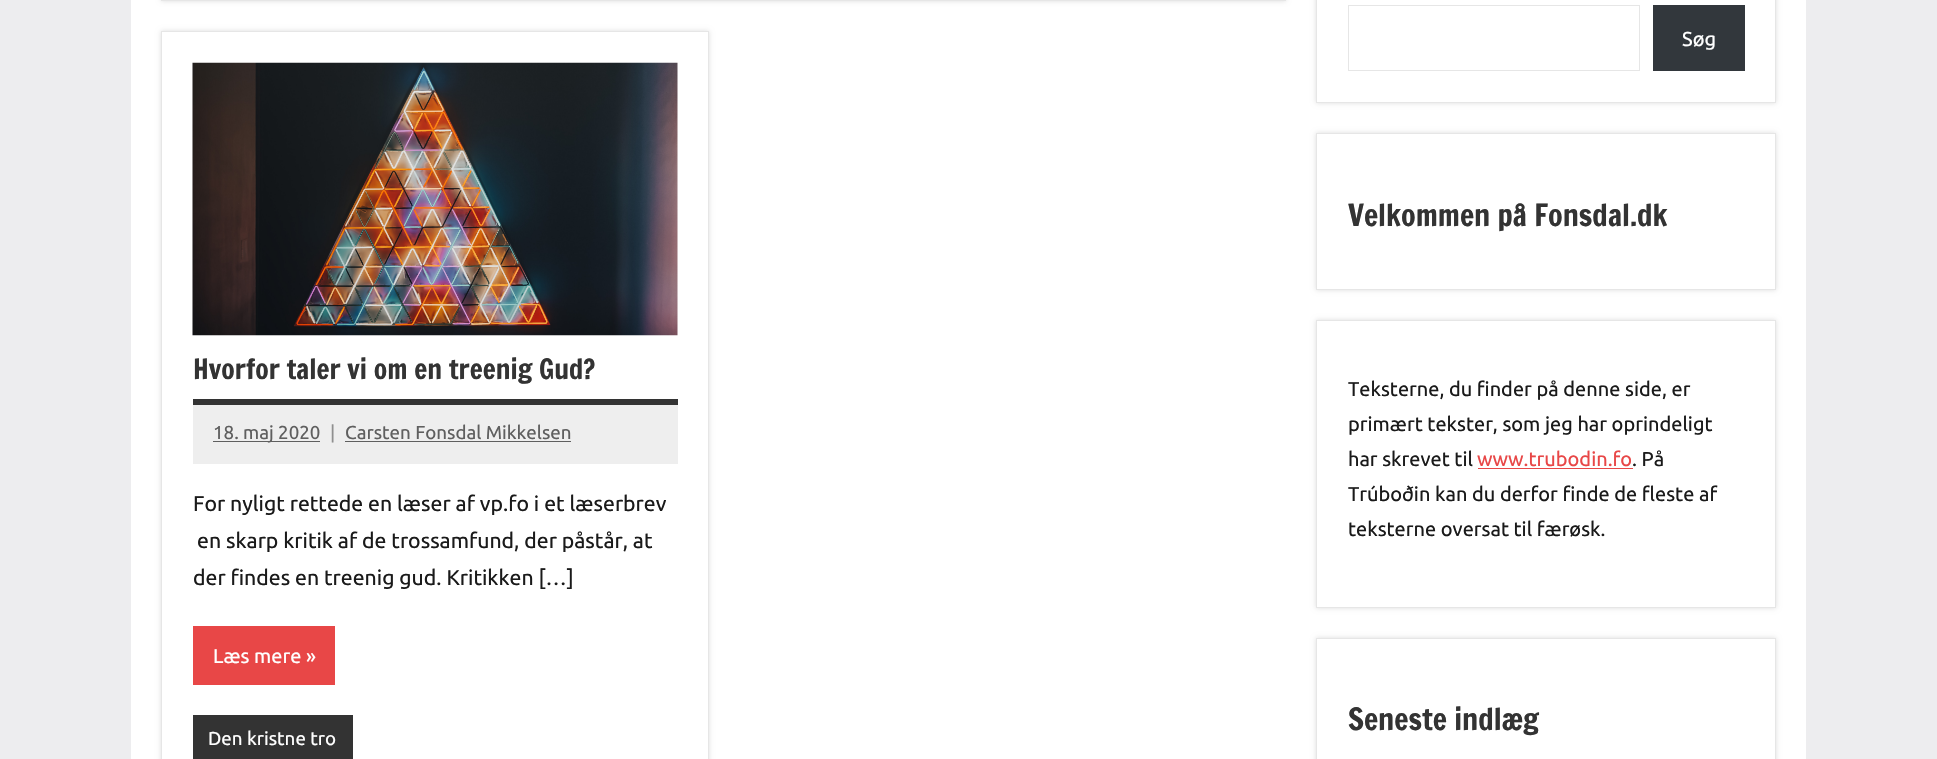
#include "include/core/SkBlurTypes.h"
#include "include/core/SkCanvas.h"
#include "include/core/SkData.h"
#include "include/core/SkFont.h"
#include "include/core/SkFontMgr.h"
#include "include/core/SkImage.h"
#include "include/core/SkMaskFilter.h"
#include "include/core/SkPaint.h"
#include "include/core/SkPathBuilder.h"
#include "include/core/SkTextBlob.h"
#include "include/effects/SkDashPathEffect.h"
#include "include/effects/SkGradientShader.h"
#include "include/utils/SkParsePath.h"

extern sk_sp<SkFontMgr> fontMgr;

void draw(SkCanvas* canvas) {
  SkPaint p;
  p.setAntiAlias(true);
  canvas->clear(SkColorSetRGB(237, 237, 239));
  p.setColor(SK_ColorWHITE);
  canvas->drawRect(SkRect::MakeLTRB(131, 0, 1806, 759), p);
  p.setColor(SkColorSetRGB(221, 221, 221));
  p.setMaskFilter(SkMaskFilter::MakeBlur(kNormal_SkBlurStyle, 2.5f));
  canvas->drawRect(SkRect::MakeLTRB(161, -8, 1286, 1), p);
  p.setMaskFilter(nullptr);
  p.setStyle(SkPaint::kStroke_Style);
  p.setStrokeWidth(1);
  p.setColor(SkColorSetRGB(230, 230, 230));
  canvas->drawRect(SkRect::MakeLTRB(161.5f, -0.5f, 1285.5f, 0.5f), p);
  p.setStyle(SkPaint::kFill_Style);
  p.setColor(SkColorSetRGB(221, 221, 221));
  p.setMaskFilter(SkMaskFilter::MakeBlur(kNormal_SkBlurStyle, 2.5f));
  canvas->drawRect(SkRect::MakeLTRB(161, 31, 709, 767), p);
  p.setMaskFilter(nullptr);
  p.setColor(SK_ColorWHITE);
  canvas->drawRect(SkRect::MakeLTRB(161.5f, 31.5f, 708.5f, 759.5f), p);
  p.setStyle(SkPaint::kStroke_Style);
  p.setColor(SkColorSetRGB(230, 230, 230));
  canvas->drawRect(SkRect::MakeLTRB(161.5f, 31.5f, 708.5f, 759.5f), p);
  canvas->drawImageRect(SkImages::DeferredFromEncodedData(SkData::MakeFromFileName("images/1.png")), SkRect::MakeLTRB(192, 62, 678, 336), SkSamplingOptions());
  p.setStyle(SkPaint::kFill_Style);
  p.setColor(SkColorSetRGB(51, 51, 51));
  canvas->drawRect(SkRect::MakeLTRB(193, 399, 678, 405), p);
  p.setColor(SkColorSetRGB(238, 238, 238));
  canvas->drawRect(SkRect::MakeLTRB(193, 405, 678, 464), p);
  p.setColor(SkColorSetRGB(95, 95, 95));
  canvas->drawRect(SkRect::MakeLTRB(213, 441, 320, 442), p);
  canvas->drawRect(SkRect::MakeLTRB(345, 441, 571, 442), p);
  p.setColor(SkColorSetRGB(232, 71, 71));
  canvas->drawRect(SkRect::MakeLTRB(193, 626, 335, 685), p);
  p.setColor(SkColorSetRGB(51, 51, 51));
  canvas->drawRect(SkRect::MakeLTRB(193, 715, 353, 759), p);
  p.setColor(SkColorSetRGB(221, 221, 221));
  p.setMaskFilter(SkMaskFilter::MakeBlur(kNormal_SkBlurStyle, 2.5f));
  canvas->drawRect(SkRect::MakeLTRB(1316, -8, 1776, 103), p);
  p.setMaskFilter(nullptr);
  p.setColor(SK_ColorWHITE);
  canvas->drawRect(SkRect::MakeLTRB(1316.5f, -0.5f, 1775.5f, 102.5f), p);
  p.setStyle(SkPaint::kStroke_Style);
  p.setColor(SkColorSetRGB(230, 230, 230));
  canvas->drawRect(SkRect::MakeLTRB(1316.5f, -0.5f, 1775.5f, 102.5f), p);
  canvas->drawRect(SkRect::MakeLTRB(1348.5f, 5.5f, 1639.5f, 70.5f), p);
  p.setStyle(SkPaint::kFill_Style);
  p.setColor(SkColorSetRGB(50, 55, 60));
  canvas->drawRect(SkRect::MakeLTRB(1653, 5, 1745, 71), p);
  p.setColor(SkColorSetRGB(221, 221, 221));
  p.setMaskFilter(SkMaskFilter::MakeBlur(kNormal_SkBlurStyle, 2.5f));
  canvas->drawRect(SkRect::MakeLTRB(1316, 133, 1776, 290), p);
  p.setMaskFilter(nullptr);
  p.setColor(SK_ColorWHITE);
  canvas->drawRect(SkRect::MakeLTRB(1316.5f, 133.5f, 1775.5f, 289.5f), p);
  p.setStyle(SkPaint::kStroke_Style);
  p.setColor(SkColorSetRGB(230, 230, 230));
  canvas->drawRect(SkRect::MakeLTRB(1316.5f, 133.5f, 1775.5f, 289.5f), p);
  p.setStyle(SkPaint::kFill_Style);
  p.setColor(SkColorSetRGB(221, 221, 221));
  p.setMaskFilter(SkMaskFilter::MakeBlur(kNormal_SkBlurStyle, 2.5f));
  canvas->drawRect(SkRect::MakeLTRB(1316, 320, 1776, 608), p);
  p.setMaskFilter(nullptr);
  p.setColor(SK_ColorWHITE);
  canvas->drawRect(SkRect::MakeLTRB(1316.5f, 320.5f, 1775.5f, 607.5f), p);
  p.setStyle(SkPaint::kStroke_Style);
  p.setColor(SkColorSetRGB(230, 230, 230));
  canvas->drawRect(SkRect::MakeLTRB(1316.5f, 320.5f, 1775.5f, 607.5f), p);
  p.setStyle(SkPaint::kFill_Style);
  p.setColor(SkColorSetRGB(232, 71, 71));
  canvas->drawRect(SkRect::MakeLTRB(1478, 468, 1633, 469), p);
  p.setColor(SkColorSetRGB(221, 221, 221));
  p.setMaskFilter(SkMaskFilter::MakeBlur(kNormal_SkBlurStyle, 2.5f));
  canvas->drawRect(SkRect::MakeLTRB(1316, 638, 1776, 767), p);
  p.setMaskFilter(nullptr);
  p.setColor(SK_ColorWHITE);
  canvas->drawRect(SkRect::MakeLTRB(1316.5f, 638.5f, 1775.5f, 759.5f), p);
  p.setStyle(SkPaint::kStroke_Style);
  p.setColor(SkColorSetRGB(230, 230, 230));
  canvas->drawRect(SkRect::MakeLTRB(1316.5f, 638.5f, 1775.5f, 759.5f), p);
  SkFont font1(fontMgr->matchFamilyStyle("Francois One", SkFontStyle::Normal()), 27.5f);
  font1.setSubpixel(true);
  p.setStyle(SkPaint::kFill_Style);
  p.setColor(SkColorSetRGB(51, 51, 51));
  canvas->drawString("Hvorfor taler vi om en treenig Gud?", 193, 379, font1, p);
  SkFont font2(fontMgr->matchFamilyStyle("Ubuntu", SkFontStyle::Normal()), 18.75f);
  font2.setSubpixel(true);
  p.setColor(SkColorSetRGB(95, 95, 95));
  canvas->drawString("18. maj 2020", 213, 439, font2, p);
  p.setColor(SkColorSetRGB(143, 143, 143));
  canvas->drawString("|", 330, 439, font2, p);
  p.setColor(SkColorSetRGB(95, 95, 95));
  canvas->drawString("Carsten Fonsdal Mikkelsen", 345, 439, font2, p);
  SkFont font3(fontMgr->matchFamilyStyle("Ubuntu", SkFontStyle::Normal()), 21.25f);
  font3.setSubpixel(true);
  p.setColor(SkColorSetRGB(26, 26, 26));
  canvas->drawString("For nyligt rettede en læser af vp.fo i et læserbrev", 193, 511, font3, p);
  canvas->drawString("en skarp kritik af de trossamfund, der påstår, at", 197, 548, font3, p);
  canvas->drawString("der findes en treenig gud. Kritikken […]", 193, 585, font3, p);
  SkFont font4(fontMgr->matchFamilyStyle("Ubuntu", SkFontStyle::Normal()), 20);
  font4.setSubpixel(true);
  p.setColor(SK_ColorWHITE);
  canvas->drawString("Læs mere »", 213, 663, font4, p);
  canvas->drawString("Den kristne tro", 208, 745, font2, p);
  canvas->drawString("Søg", 1682, 46, font4, p);
  SkFont font5(fontMgr->matchFamilyStyle("Francois One", SkFontStyle::Normal()), 30);
  font5.setSubpixel(true);
  p.setColor(SkColorSetRGB(51, 51, 51));
  canvas->drawString("Velkommen på Fonsdal.dk", 1348, 226, font5, p);
  p.setColor(SkColorSetRGB(26, 26, 26));
  canvas->drawString("Teksterne, du finder på denne side, er", 1348, 396, font4, p);
  canvas->drawString("primært tekster, som jeg har oprindeligt", 1348, 431, font4, p);
  canvas->drawString("har skrevet til", 1348, 466, font4, p);
  p.setColor(SkColorSetRGB(232, 71, 71));
  canvas->drawString("www.trubodin.fo", 1477, 466, font4, p);
  p.setColor(SkColorSetRGB(26, 26, 26));
  canvas->drawString(". På", 1632, 466, font4, p);
  canvas->drawString("Trúboðin kan du derfor finde de fleste af", 1348, 501, font4, p);
  canvas->drawString("teksterne oversat til færøsk.", 1348, 536, font4, p);
  p.setColor(SkColorSetRGB(51, 51, 51));
  canvas->drawString("Seneste indlæg", 1348, 730, font5, p);
}
